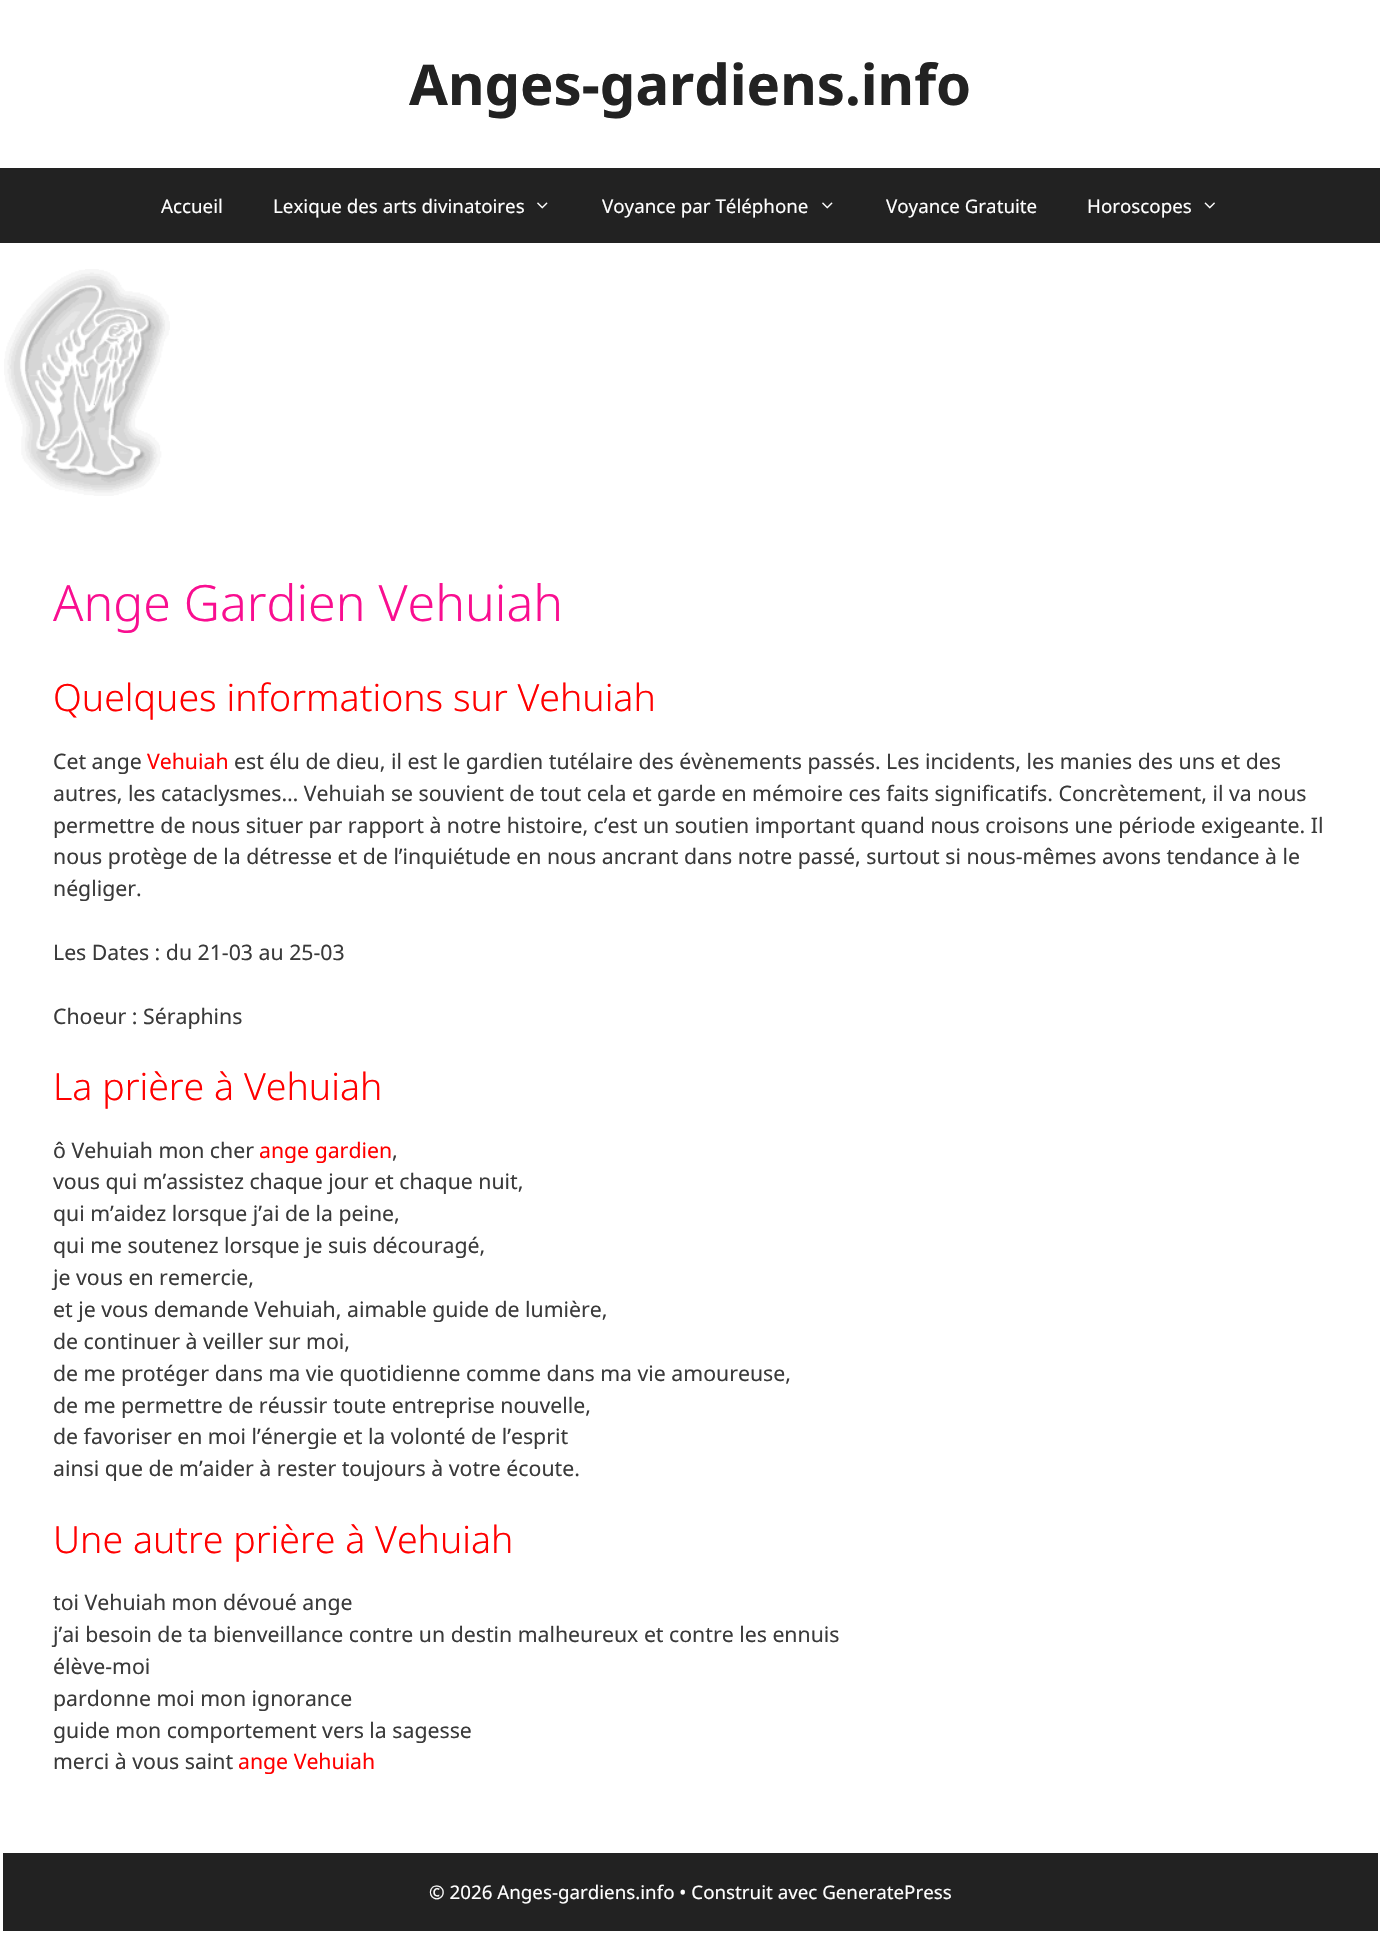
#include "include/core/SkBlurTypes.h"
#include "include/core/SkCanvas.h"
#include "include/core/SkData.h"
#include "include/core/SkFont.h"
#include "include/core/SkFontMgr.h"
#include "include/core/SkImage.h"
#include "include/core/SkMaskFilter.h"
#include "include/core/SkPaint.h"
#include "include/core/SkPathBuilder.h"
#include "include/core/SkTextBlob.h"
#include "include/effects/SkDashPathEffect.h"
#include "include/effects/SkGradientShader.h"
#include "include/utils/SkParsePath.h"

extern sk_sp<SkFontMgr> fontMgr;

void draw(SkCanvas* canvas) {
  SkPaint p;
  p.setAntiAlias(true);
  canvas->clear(SK_ColorWHITE);
  p.setColor(SkColorSetRGB(34, 34, 34));
  canvas->drawRect(SkRect::MakeLTRB(0, 168, 1380, 243), p);
  canvas->drawImageRect(SkImages::DeferredFromEncodedData(SkData::MakeFromFileName("images/1.png")), SkRect::MakeLTRB(537, 202, 548, 209), SkSamplingOptions());
  canvas->drawImageRect(SkImages::DeferredFromEncodedData(SkData::MakeFromFileName("images/1.png")), SkRect::MakeLTRB(822, 202, 833, 209), SkSamplingOptions());
  canvas->drawImageRect(SkImages::DeferredFromEncodedData(SkData::MakeFromFileName("images/2.png")), SkRect::MakeLTRB(1204, 202, 1215, 209), SkSamplingOptions());
  canvas->drawImageRect(SkImages::DeferredFromEncodedData(SkData::MakeFromFileName("images/3.png")), SkRect::MakeLTRB(4, 269, 170, 496), SkSamplingOptions());
  canvas->drawRect(SkRect::MakeLTRB(3, 1853, 1378, 1931), p);
  SkFont font1(fontMgr->matchFamilyStyle("Noto Sans", SkFontStyle::Bold()), 56.25f);
  font1.setSubpixel(true);
  canvas->drawString("Anges-gardiens.info", 409, 105, font1, p);
  SkFont font2(fontMgr->matchFamilyStyle("Noto Sans", SkFontStyle::Normal()), 18.75f);
  font2.setSubpixel(true);
  p.setColor(SK_ColorWHITE);
  canvas->drawString("Accueil", 161, 213, font2, p);
  canvas->drawString("Lexique des arts divinatoires", 273, 213, font2, p);
  canvas->drawString("Voyance par Téléphone", 602, 213, font2, p);
  canvas->drawString("Voyance Gratuite", 886, 213, font2, p);
  canvas->drawString("Horoscopes", 1087, 213, font2, p);
  SkFont font3(fontMgr->matchFamilyStyle("Noto Sans", SkFontStyle(300, SkFontStyle::kNormal_Width, SkFontStyle::kUpright_Slant)), 50);
  font3.setSubpixel(true);
  p.setColor(SkColorSetRGB(249, 14, 144));
  canvas->drawString("Ange Gardien Vehuiah", 53, 621, font3, p);
  SkFont font4(fontMgr->matchFamilyStyle("Noto Sans", SkFontStyle(300, SkFontStyle::kNormal_Width, SkFontStyle::kUpright_Slant)), 37.5f);
  font4.setSubpixel(true);
  p.setColor(SkColorSetRGB(255, 0, 0));
  canvas->drawString("Quelques informations sur Vehuiah", 53, 711, font4, p);
  SkFont font5(fontMgr->matchFamilyStyle("Noto Sans", SkFontStyle::Normal()), 21.25f);
  font5.setSubpixel(true);
  p.setColor(SkColorSetRGB(58, 58, 58));
  canvas->drawString("Cet ange", 53, 769, font5, p);
  p.setColor(SkColorSetRGB(255, 0, 0));
  canvas->drawString("Vehuiah", 147, 769, font5, p);
  p.setColor(SkColorSetRGB(58, 58, 58));
  canvas->drawString("est élu de dieu, il est le gardien tutélaire des évènements passés. Les incidents, les manies des uns et des", 234, 769, font5, p);
  canvas->drawString("autres, les cataclysmes… Vehuiah se souvient de tout cela et garde en mémoire ces faits significatifs. Concrètement, il va nous", 53, 801, font5, p);
  canvas->drawString("permettre de nous situer par rapport à notre histoire, c’est un soutien important quand nous croisons une période exigeante. Il", 53, 833, font5, p);
  canvas->drawString("nous protège de la détresse et de l’inquiétude en nous ancrant dans notre passé, surtout si nous-mêmes avons tendance à le", 53, 864, font5, p);
  canvas->drawString("négliger.", 53, 896, font5, p);
  canvas->drawString("Les Dates : du 21-03 au 25-03", 53, 960, font5, p);
  canvas->drawString("Choeur : Séraphins", 53, 1024, font5, p);
  p.setColor(SkColorSetRGB(255, 0, 0));
  canvas->drawString("La prière à Vehuiah", 53, 1100, font4, p);
  p.setColor(SkColorSetRGB(58, 58, 58));
  canvas->drawString("ô Vehuiah mon cher", 53, 1158, font5, p);
  p.setColor(SkColorSetRGB(255, 0, 0));
  canvas->drawString("ange gardien", 259, 1158, font5, p);
  p.setColor(SkColorSetRGB(58, 58, 58));
  canvas->drawString(",", 392, 1158, font5, p);
  canvas->drawString("vous qui m’assistez chaque jour et chaque nuit,", 53, 1189, font5, p);
  canvas->drawString("qui m’aidez lorsque j’ai de la peine,", 53, 1221, font5, p);
  canvas->drawString("qui me soutenez lorsque je suis découragé,", 53, 1253, font5, p);
  canvas->drawString("je vous en remercie,", 53, 1285, font5, p);
  canvas->drawString("et je vous demande Vehuiah, aimable guide de lumière,", 53, 1317, font5, p);
  canvas->drawString("de continuer à veiller sur moi,", 53, 1349, font5, p);
  canvas->drawString("de me protéger dans ma vie quotidienne comme dans ma vie amoureuse,", 53, 1381, font5, p);
  canvas->drawString("de me permettre de réussir toute entreprise nouvelle,", 53, 1413, font5, p);
  canvas->drawString("de favoriser en moi l’énergie et la volonté de l’esprit", 53, 1444, font5, p);
  canvas->drawString("ainsi que de m’aider à rester toujours à votre écoute.", 53, 1476, font5, p);
  p.setColor(SkColorSetRGB(255, 0, 0));
  canvas->drawString("Une autre prière à Vehuiah", 53, 1553, font4, p);
  p.setColor(SkColorSetRGB(58, 58, 58));
  canvas->drawString("toi Vehuiah mon dévoué ange", 53, 1610, font5, p);
  canvas->drawString("j’ai besoin de ta bienveillance contre un destin malheureux et contre les ennuis", 53, 1642, font5, p);
  canvas->drawString("élève-moi", 53, 1674, font5, p);
  canvas->drawString("pardonne moi mon ignorance", 53, 1706, font5, p);
  canvas->drawString("guide mon comportement vers la sagesse", 53, 1738, font5, p);
  canvas->drawString("merci à vous saint", 53, 1769, font5, p);
  p.setColor(SkColorSetRGB(255, 0, 0));
  canvas->drawString("ange Vehuiah", 238, 1769, font5, p);
  p.setColor(SK_ColorWHITE);
  canvas->drawString("© 2026 Anges-gardiens.info • Construit avec GeneratePress", 429, 1899, font2, p);
}
